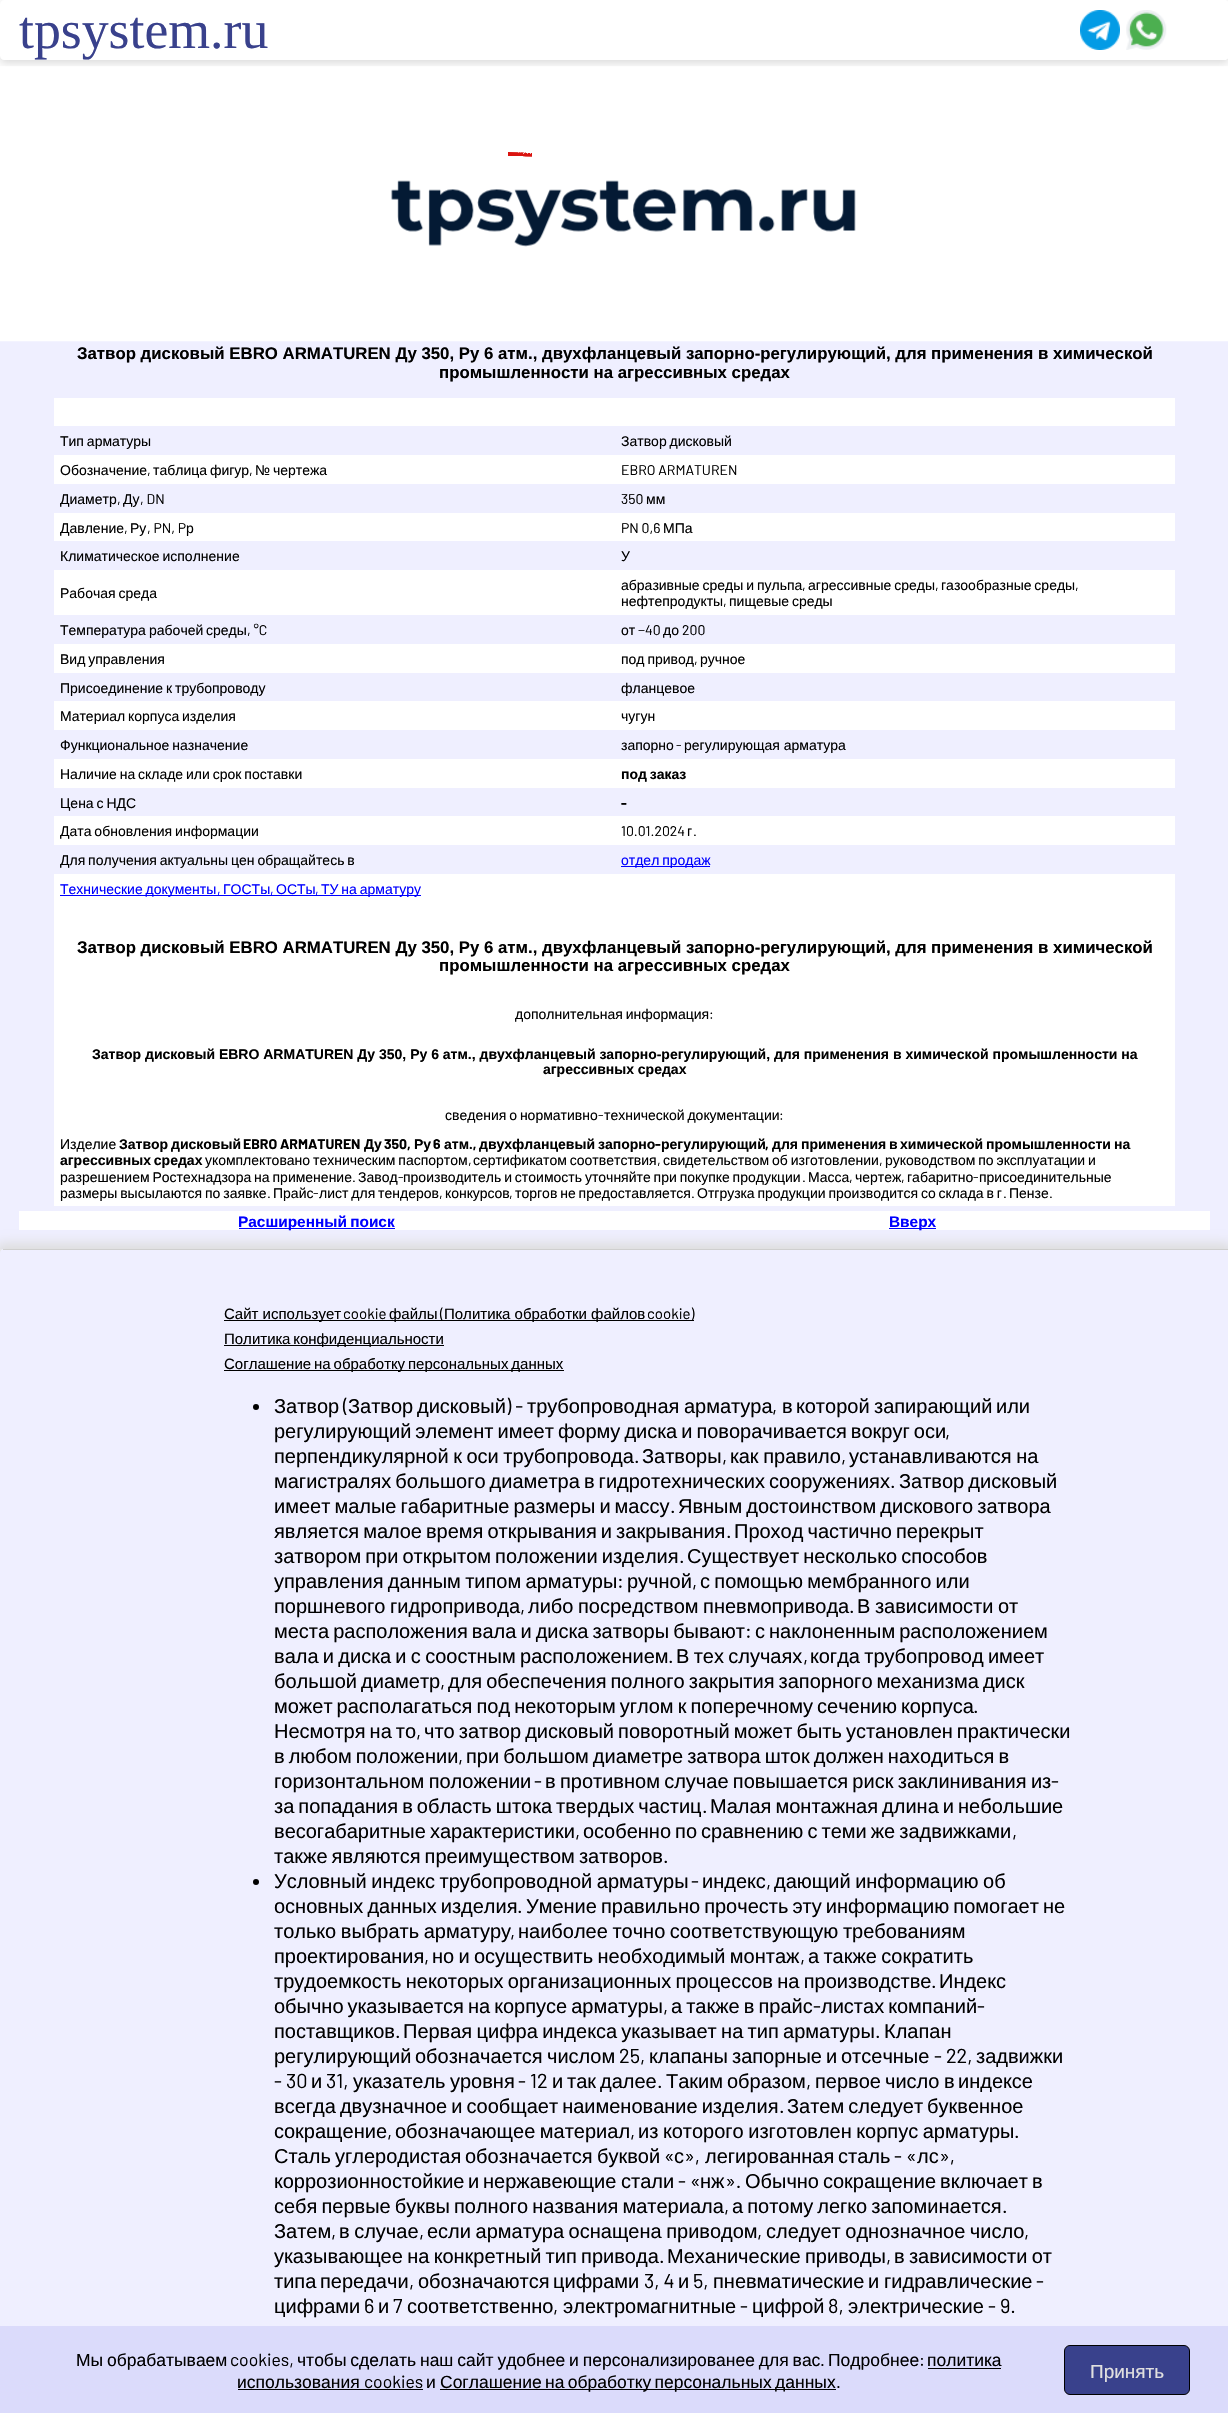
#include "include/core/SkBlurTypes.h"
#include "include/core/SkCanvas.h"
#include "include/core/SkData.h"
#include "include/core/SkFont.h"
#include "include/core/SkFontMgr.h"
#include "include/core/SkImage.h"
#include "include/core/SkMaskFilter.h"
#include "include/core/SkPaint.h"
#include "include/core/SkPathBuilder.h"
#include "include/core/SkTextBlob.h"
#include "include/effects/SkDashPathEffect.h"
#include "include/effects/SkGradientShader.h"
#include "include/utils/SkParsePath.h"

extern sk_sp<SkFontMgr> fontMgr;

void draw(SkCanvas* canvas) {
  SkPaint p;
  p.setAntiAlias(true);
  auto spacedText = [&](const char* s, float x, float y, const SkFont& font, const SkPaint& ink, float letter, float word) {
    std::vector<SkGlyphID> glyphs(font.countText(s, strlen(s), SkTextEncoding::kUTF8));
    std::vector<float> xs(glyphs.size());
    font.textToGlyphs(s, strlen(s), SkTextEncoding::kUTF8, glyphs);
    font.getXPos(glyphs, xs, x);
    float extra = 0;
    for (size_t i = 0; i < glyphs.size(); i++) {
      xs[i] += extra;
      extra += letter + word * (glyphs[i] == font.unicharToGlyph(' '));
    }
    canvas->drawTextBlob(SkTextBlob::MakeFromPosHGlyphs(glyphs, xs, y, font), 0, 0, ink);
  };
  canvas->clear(SK_ColorWHITE);
  canvas->save();
  canvas->clipPath(SkPathBuilder(SkPathFillType::kEvenOdd).moveTo(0, 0).lineTo(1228, 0).lineTo(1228, 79).lineTo(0, 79).close().moveTo(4, 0).lineTo(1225, 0).cubicTo(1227, 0, 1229, 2, 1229, 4).lineTo(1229, 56).cubicTo(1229, 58, 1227, 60, 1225, 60).lineTo(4, 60).cubicTo(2, 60, 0, 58, 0, 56).lineTo(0, 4).cubicTo(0, 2, 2, 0, 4, 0).close().detach(), true);
  p.setColor(SkColorSetARGB(38, 0, 0, 0));
  p.setMaskFilter(SkMaskFilter::MakeBlur(kNormal_SkBlurStyle, 5));
  canvas->drawRoundRect(SkRect::MakeLTRB(0, 3, 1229, 63), 4, 4, p);
  p.setMaskFilter(nullptr);
  canvas->restore();
  canvas->drawImageRect(SkImages::DeferredFromEncodedData(SkData::MakeFromFileName("images/1.png")), SkRect::MakeLTRB(1080, 10, 1120, 50), SkSamplingOptions());
  canvas->drawImageRect(SkImages::DeferredFromEncodedData(SkData::MakeFromFileName("images/2.png")), SkRect::MakeLTRB(1126, 10, 1167, 50), SkSamplingOptions());
  p.setColor(SkColorSetRGB(239, 239, 255));
  canvas->drawRect(SkRect::MakeLTRB(0, 341, 1228, 1249), p);
  canvas->drawImageRect(SkImages::DeferredFromEncodedData(SkData::MakeFromFileName("images/3.png")), SkRect::MakeLTRB(0, 66, 1228, 342), SkSamplingOptions());
  p.setColor(SK_ColorWHITE);
  canvas->drawRect(SkRect::MakeLTRB(54, 398, 1175, 426), p);
  canvas->drawRect(SkRect::MakeLTRB(54, 455, 1175, 484), p);
  canvas->drawRect(SkRect::MakeLTRB(54, 513, 1175, 541), p);
  canvas->drawRect(SkRect::MakeLTRB(54, 570, 1175, 615), p);
  canvas->drawRect(SkRect::MakeLTRB(54, 644, 1175, 673), p);
  canvas->drawRect(SkRect::MakeLTRB(54, 701, 1175, 730), p);
  canvas->drawRect(SkRect::MakeLTRB(54, 759, 1175, 788), p);
  canvas->drawRect(SkRect::MakeLTRB(54, 816, 1175, 845), p);
  p.setColor(SkColorSetRGB(0, 0, 255));
  canvas->drawRect(SkRect::MakeLTRB(621, 866, 710, 867), p);
  p.setColor(SK_ColorWHITE);
  canvas->drawRect(SkRect::MakeLTRB(54, 874, 1175, 1206), p);
  p.setColor(SkColorSetRGB(0, 0, 255));
  canvas->drawRect(SkRect::MakeLTRB(60, 895, 421, 896), p);
  p.setColor(SkColorSetRGB(221, 221, 221));
  p.setMaskFilter(SkMaskFilter::MakeBlur(kNormal_SkBlurStyle, 6));
  canvas->drawRoundRect(SkRect::MakeLTRB(-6, 1243, 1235, 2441), 10, 10, p);
  p.setMaskFilter(nullptr);
  p.setColor(SK_ColorWHITE);
  canvas->drawRect(SkRect::MakeLTRB(19, 1211, 1210, 1230), p);
  p.setColor(SkColorSetRGB(0, 0, 255));
  canvas->drawRect(SkRect::MakeLTRB(239, 1228, 395, 1229), p);
  canvas->drawRect(SkRect::MakeLTRB(889, 1228, 936, 1229), p);
  p.setColor(SkColorSetRGB(239, 239, 255));
  canvas->drawRoundRect(SkRect::MakeLTRB(0, 1249, 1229, 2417), 4, 4, p);
  p.setColor(SkColorSetRGB(207, 207, 207));
  canvas->drawRect(SkRect::MakeLTRB(3, 1249, 1228, 1250), p);
  p.setColor(SK_ColorBLACK);
  canvas->drawRect(SkRect::MakeLTRB(224, 1320, 694, 1321), p);
  canvas->drawRect(SkRect::MakeLTRB(224, 1345, 444, 1346), p);
  canvas->drawRect(SkRect::MakeLTRB(224, 1370, 564, 1371), p);
  canvas->drawCircle(256, 1407, 3, p);
  canvas->drawCircle(256, 1882, 3, p);
  p.setColor(SkColorSetRGB(219, 219, 251));
  canvas->drawRect(SkRect::MakeLTRB(0, 2326, 1228, 2413), p);
  p.setColor(SK_ColorBLACK);
  canvas->drawRect(SkRect::MakeLTRB(928, 2368, 1001, 2369), p);
  canvas->drawRect(SkRect::MakeLTRB(238, 2389, 423, 2390), p);
  canvas->drawRect(SkRect::MakeLTRB(440, 2389, 836, 2390), p);
  p.setColor(SkColorSetRGB(57, 65, 140));
  canvas->drawRoundRect(SkRect::MakeLTRB(1064.5f, 2345.5f, 1189.5f, 2394.5f), 5.5f, 5.5f, p);
  p.setStyle(SkPaint::kStroke_Style);
  p.setStrokeWidth(1);
  p.setColor(SK_ColorBLACK);
  canvas->drawRoundRect(SkRect::MakeLTRB(1064.5f, 2345.5f, 1189.5f, 2394.5f), 5.5f, 5.5f, p);
  SkFont font1(fontMgr->matchFamilyStyle("Liberation Serif", SkFontStyle::Normal()), 53.75f);
  font1.setSubpixel(true);
  p.setStyle(SkPaint::kFill_Style);
  p.setColor(SkColorSetRGB(57, 65, 140));
  canvas->drawString("tpsystem.ru", 19, 48, font1, p);
  SkFont font2(fontMgr->matchFamilyStyle("Liberation Sans", SkFontStyle::Bold()), 16.8f);
  font2.setSubpixel(true);
  p.setColor(SK_ColorBLACK);
  canvas->drawString("Затвор дисковый EBRO ARMATUREN Ду 350, Ру 6 атм., двухфланцевый запорно-регулирующий, для применения в химической", 77, 359, font2, p);
  canvas->drawString("промышленности на агрессивных средах", 439, 378, font2, p);
  SkFont font3(fontMgr->matchFamilyStyle("Liberation Sans", SkFontStyle::Normal()), 14);
  font3.setSubpixel(true);
  spacedText("Тип арматуры", 60, 446, font3, p, 0, -1);
  spacedText("Затвор дисковый", 621, 446, font3, p, 0, -1);
  canvas->drawString("Обозначение", 60, 475, font3, p);
  SkFont font4(fontMgr->matchFamilyStyle("Barlow", SkFontStyle::Normal()), 14);
  font4.setSubpixel(true);
  canvas->drawString(",", 147, 475, font4, p);
  spacedText("таблица фигур", 153, 475, font3, p, 0, -1);
  canvas->drawString(",", 249, 475, font4, p);
  spacedText("№ чертежа", 255, 475, font3, p, 0, -1);
  canvas->drawString("EBRO ARMATUREN", 621, 475, font4, p);
  canvas->drawString("Диаметр", 60, 504, font3, p);
  canvas->drawString(",", 117, 504, font4, p);
  canvas->drawString("Ду", 123, 504, font3, p);
  canvas->drawString(", DN", 140, 504, font4, p);
  canvas->drawString("350", 621, 504, font4, p);
  canvas->drawString("мм", 646, 504, font3, p);
  canvas->drawString("Давление", 60, 533, font3, p);
  canvas->drawString(",", 124, 533, font4, p);
  canvas->drawString("Ру", 130, 533, font3, p);
  canvas->drawString(", PN, P", 147, 533, font4, p);
  canvas->drawString("р", 186, 533, font3, p);
  canvas->drawString("PN 0,6", 621, 533, font4, p);
  canvas->drawString("МПа", 663, 533, font3, p);
  spacedText("Климатическое исполнение", 60, 561, font3, p, 0, -1);
  canvas->drawString("У", 621, 561, font3, p);
  spacedText("Рабочая среда", 60, 598, font3, p, 0, -1);
  spacedText("абразивные среды и пульпа", 621, 590, font3, p, 0, -1);
  canvas->drawString(",", 802, 590, font4, p);
  spacedText("агрессивные среды", 808, 590, font3, p, 0, -1);
  canvas->drawString(",", 935, 590, font4, p);
  spacedText("газообразные среды", 941, 590, font3, p, 0, -1);
  canvas->drawString(",", 1075, 590, font4, p);
  canvas->drawString("нефтепродукты", 621, 606, font3, p);
  canvas->drawString(",", 723, 606, font4, p);
  spacedText("пищевые среды", 729, 606, font3, p, 0, -1);
  canvas->drawString("Температура", 60, 635, font3, p);
  canvas->drawString("рабочей", 149, 635, font3, p);
  canvas->drawString("среды", 206, 635, font3, p);
  canvas->drawString(", °C", 247, 635, font4, p);
  canvas->drawString("от", 621, 635, font3, p);
  canvas->drawString("−40", 638, 635, font4, p);
  canvas->drawString("до", 663, 635, font3, p);
  canvas->drawString("200", 682, 635, font4, p);
  spacedText("Вид управления", 60, 664, font3, p, 0, -1);
  spacedText("под привод", 621, 664, font3, p, 0, -1);
  canvas->drawString(",", 694, 664, font4, p);
  canvas->drawString("ручное", 700, 664, font3, p);
  spacedText("Присоединение к трубопроводу", 60, 693, font3, p, 0, -1);
  canvas->drawString("фланцевое", 621, 693, font3, p);
  spacedText("Материал корпуса изделия", 60, 721, font3, p, 0, -1);
  canvas->drawString("чугун", 621, 721, font3, p);
  spacedText("Функциональное назначение", 60, 750, font3, p, 0, -1);
  canvas->drawString("запорно", 621, 750, font3, p);
  canvas->drawString("-", 676, 750, font4, p);
  canvas->drawString("регулирующая арматура", 684, 750, font3, p);
  spacedText("Наличие на складе или срок поставки", 60, 779, font3, p, 0, -1);
  SkFont font5(fontMgr->matchFamilyStyle("Liberation Sans", SkFontStyle::Bold()), 14);
  font5.setSubpixel(true);
  spacedText("под заказ", 621, 779, font5, p, 0, -1);
  spacedText("Цена с НДС", 60, 808, font3, p, 0, -1);
  SkFont font6(fontMgr->matchFamilyStyle("Barlow", SkFontStyle::Bold()), 14);
  font6.setSubpixel(true);
  canvas->drawString("-", 621, 808, font6, p);
  spacedText("Дата обновления информации", 60, 836, font3, p, 0, -1);
  canvas->drawString("10.01.2024", 621, 836, font4, p);
  canvas->drawString("г", 687, 836, font3, p);
  canvas->drawString(".", 693, 836, font4, p);
  spacedText("Для получения актуальны цен обращайтесь в", 60, 865, font3, p, 0, -1);
  p.setColor(SkColorSetRGB(0, 0, 255));
  spacedText("отдел продаж", 621, 865, font3, p, 0, -1);
  spacedText("Технические документы", 60, 894, font3, p, 0, -1);
  canvas->drawString(",", 217, 894, font4, p);
  canvas->drawString("ГОСТы", 223, 894, font3, p);
  canvas->drawString(",", 270, 894, font4, p);
  canvas->drawString("ОСТы", 276, 894, font3, p);
  canvas->drawString(",", 315, 894, font4, p);
  spacedText("ТУ на арматуру", 321, 894, font3, p, 0, -1);
  p.setColor(SK_ColorBLACK);
  canvas->drawString("Затвор дисковый EBRO ARMATUREN Ду 350, Ру 6 атм., двухфланцевый запорно-регулирующий, для применения в химической", 77, 953, font2, p);
  canvas->drawString("промышленности на агрессивных средах", 439, 971, font2, p);
  spacedText("дополнительная информация", 515, 1019, font3, p, 0, -1);
  canvas->drawString(":", 709, 1019, font4, p);
  canvas->drawString("Затвор дисковый EBRO ARMATUREN Ду 350, Ру 6 атм., двухфланцевый запорно-регулирующий, для применения в химической промышленности на", 92, 1059, font5, p);
  canvas->drawString("агрессивных средах", 543, 1074, font5, p);
  spacedText("сведения о нормативно", 445, 1120, font3, p, 0, -1);
  canvas->drawString("-", 598, 1120, font4, p);
  spacedText("технической документации", 604, 1120, font3, p, 0, -1);
  canvas->drawString(":", 779, 1120, font4, p);
  canvas->drawString("Изделие", 60, 1149, font3, p);
  canvas->drawString("Затвор", 119, 1149, font5, p);
  canvas->drawString("дисковый", 171, 1149, font5, p);
  canvas->drawString("EBRO ARMATUREN", 243, 1149, font6, p);
  canvas->drawString("Ду", 364, 1149, font5, p);
  canvas->drawString("350,", 384, 1149, font6, p);
  canvas->drawString("Ру", 414, 1149, font5, p);
  canvas->drawString("6", 433, 1149, font6, p);
  canvas->drawString("атм", 444, 1149, font5, p);
  canvas->drawString("двухфланцевый", 479, 1149, font5, p);
  canvas->drawString("запорно", 598, 1149, font5, p);
  canvas->drawString("-", 655, 1149, font6, p);
  canvas->drawString("регулирующий", 661, 1149, font5, p);
  canvas->drawString("для", 772, 1149, font5, p);
  canvas->drawString("применения", 801, 1149, font5, p);
  canvas->drawString("в", 889, 1149, font5, p);
  canvas->drawString("химической", 900, 1149, font5, p);
  canvas->drawString("промышленности", 986, 1149, font5, p);
  canvas->drawString("на", 1114, 1149, font5, p);
  canvas->drawString(".,", 469, 1149, font6, p);
  canvas->drawString(",", 765, 1149, font6, p);
  spacedText("агрессивных средах", 60, 1165, font5, p, 0, -1);
  spacedText("укомплектовано техническим паспортом", 205, 1165, font3, p, 0, -1);
  canvas->drawString(",", 468, 1165, font4, p);
  spacedText("сертификатом соответствия", 473, 1165, font3, p, 0, -1);
  canvas->drawString(",", 657, 1165, font4, p);
  spacedText("свидетельством об изготовлении", 663, 1165, font3, p, 0, -1);
  canvas->drawString(",", 879, 1165, font4, p);
  spacedText("руководством по эксплуатации и", 885, 1165, font3, p, 0, -1);
  spacedText("разрешением Ростехнадзора на применение", 60, 1182, font3, p, 0, -1);
  canvas->drawString("Завод", 358, 1182, font3, p);
  canvas->drawString("-", 398, 1182, font4, p);
  spacedText("производитель и стоимость уточняйте при покупке продукции", 403, 1182, font3, p, 0, -1);
  canvas->drawString("Масса", 808, 1182, font3, p);
  canvas->drawString("чертеж", 855, 1182, font3, p);
  canvas->drawString("габаритно", 907, 1182, font3, p);
  canvas->drawString("-", 973, 1182, font4, p);
  canvas->drawString("присоединительные", 979, 1182, font3, p);
  canvas->drawString(".", 352, 1182, font4, p);
  canvas->drawString(".", 802, 1182, font4, p);
  canvas->drawString(",", 849, 1182, font4, p);
  canvas->drawString(",", 901, 1182, font4, p);
  spacedText("размеры высылаются по заявке", 60, 1198, font3, p, 0, -1);
  canvas->drawString("Прайс", 273, 1198, font3, p);
  canvas->drawString("-", 313, 1198, font4, p);
  spacedText("лист для тендеров", 319, 1198, font3, p, 0, -1);
  canvas->drawString("конкурсов", 445, 1198, font3, p);
  spacedText("торгов не предоставляется", 515, 1198, font3, p, 0, -1);
  spacedText("Отгрузка продукции производится со склада в г", 697, 1198, font3, p, 0, -1);
  canvas->drawString("Пензе", 1009, 1198, font3, p);
  canvas->drawString(".", 267, 1198, font4, p);
  canvas->drawString(",", 439, 1198, font4, p);
  canvas->drawString(",", 509, 1198, font4, p);
  canvas->drawString(".", 691, 1198, font4, p);
  canvas->drawString(".", 1003, 1198, font4, p);
  canvas->drawString(".", 1049, 1198, font4, p);
  SkFont font7(fontMgr->matchFamilyStyle("Liberation Sans", SkFontStyle::Bold()), 15.4f);
  font7.setSubpixel(true);
  p.setColor(SkColorSetRGB(0, 0, 255));
  spacedText("Расширенный поиск", 238, 1227, font7, p, 0, -1);
  canvas->drawString("Вверх", 889, 1227, font7, p);
  SkFont font8(fontMgr->matchFamilyStyle("Liberation Sans", SkFontStyle::Normal()), 15);
  font8.setSubpixel(true);
  p.setColor(SK_ColorBLACK);
  canvas->drawString("Сайт использует", 224, 1319, font8, p);
  SkFont font9(fontMgr->matchFamilyStyle("Barlow", SkFontStyle::Normal()), 15);
  font9.setSubpixel(true);
  canvas->drawString("cookie", 343, 1319, font9, p);
  canvas->drawString("файлы", 389, 1319, font8, p);
  canvas->drawString("(", 440, 1319, font9, p);
  canvas->drawString("Политика обработки файлов", 444, 1319, font8, p);
  canvas->drawString("cookie)", 647, 1319, font9, p);
  spacedText("Политика конфиденциальности", 224, 1344, font8, p, 0, -1.25f);
  spacedText("Соглашение на обработку персональных данных", 224, 1369, font8, p, 0, -1.25f);
  SkFont font10(fontMgr->matchFamilyStyle("Liberation Sans", SkFontStyle::Normal()), 20);
  font10.setSubpixel(true);
  canvas->drawString("Затвор", 274, 1413, font10, p);
  SkFont font11(fontMgr->matchFamilyStyle("Barlow", SkFontStyle::Normal()), 20);
  font11.setSubpixel(true);
  canvas->drawString("(", 343, 1413, font11, p);
  canvas->drawString("Затвор", 348, 1413, font10, p);
  canvas->drawString("дисковый", 417, 1413, font10, p);
  canvas->drawString(") -", 506, 1413, font11, p);
  canvas->drawString("трубопроводная", 527, 1413, font10, p);
  canvas->drawString("арматура", 684, 1413, font10, p);
  canvas->drawString("в", 782, 1413, font10, p);
  canvas->drawString("которой", 796, 1413, font10, p);
  canvas->drawString("запирающий", 874, 1413, font10, p);
  canvas->drawString("или", 996, 1413, font10, p);
  canvas->drawString(",", 772, 1413, font11, p);
  spacedText("регулирующий элемент имеет форму диска и поворачивается вокруг оси", 274, 1438, font10, p, 0, -1.5f);
  canvas->drawString(",", 945, 1438, font11, p);
  spacedText("перпендикулярной к оси трубопровода", 274, 1463, font10, p, 0, -1);
  canvas->drawString(".", 634, 1463, font11, p);
  canvas->drawString("Затворы", 642, 1463, font10, p);
  canvas->drawString(",", 722, 1463, font11, p);
  spacedText("как правило", 730, 1463, font10, p, 0, -1);
  canvas->drawString(",", 841, 1463, font11, p);
  spacedText("устанавливаются на", 849, 1463, font10, p, 0, -1);
  spacedText("магистралях большого диаметра в гидротехнических сооружениях", 274, 1488, font10, p, 0, -1.5f);
  canvas->drawString(".", 890, 1488, font11, p);
  spacedText("Затвор дисковый", 899, 1488, font10, p, 0, -1.5f);
  spacedText("имеет малые габаритные размеры и массу", 274, 1513, font10, p, 0, -1.5f);
  canvas->drawString(".", 670, 1513, font11, p);
  spacedText("Явным достоинством дискового затвора", 678, 1513, font10, p, 0, -1.5f);
  spacedText("является малое время открывания и закрывания", 274, 1538, font10, p, 0, -1.5f);
  canvas->drawString(".", 726, 1538, font11, p);
  spacedText("Проход частично перекрыт", 734, 1538, font10, p, 0, -1.5f);
  spacedText("затвором при открытом положении изделия", 274, 1563, font10, p, 0, -1.5f);
  canvas->drawString(".", 679, 1563, font11, p);
  spacedText("Существует несколько способов", 687, 1563, font10, p, 0, -1.5f);
  spacedText("управления данным типом арматуры", 274, 1588, font10, p, 0, -1.25f);
  canvas->drawString(":", 617, 1588, font11, p);
  canvas->drawString("ручной", 627, 1588, font10, p);
  canvas->drawString(",", 692, 1588, font11, p);
  spacedText("с помощью мембранного или", 700, 1588, font10, p, 0, -1.25f);
  spacedText("поршневого гидропривода", 274, 1613, font10, p, 0, -1);
  canvas->drawString(",", 520, 1613, font11, p);
  spacedText("либо посредством пневмопривода", 528, 1613, font10, p, 0, -1);
  canvas->drawString(".", 849, 1613, font11, p);
  spacedText("В зависимости от", 857, 1613, font10, p, 0, -1);
  spacedText("места расположения вала и диска затворы бывают", 274, 1638, font10, p, 0, -1.5f);
  canvas->drawString(":", 745, 1638, font11, p);
  spacedText("с наклоненным расположением", 755, 1638, font10, p, 0, -1.5f);
  spacedText("вала и диска и с соостным расположением", 274, 1663, font10, p, 0, -1.25f);
  canvas->drawString(".", 668, 1663, font11, p);
  spacedText("В тех случаях", 676, 1663, font10, p, 0, -1.25f);
  canvas->drawString(",", 803, 1663, font11, p);
  spacedText("когда трубопровод имеет", 810, 1663, font10, p, 0, -1.25f);
  spacedText("большой диаметр", 274, 1688, font10, p, 0, -1.5f);
  canvas->drawString(",", 440, 1688, font11, p);
  spacedText("для обеспечения полного закрытия запорного механизма диск", 448, 1688, font10, p, 0, -1.5f);
  spacedText("может располагаться под некоторым углом к поперечному сечению корпуса", 274, 1713, font10, p, 0, -1.5f);
  canvas->drawString(".", 973, 1713, font11, p);
  spacedText("Несмотря на то", 274, 1738, font10, p, 0, -1.5f);
  canvas->drawString(",", 416, 1738, font11, p);
  spacedText("что затвор дисковый поворотный может быть установлен практически", 424, 1738, font10, p, 0, -1.5f);
  spacedText("в любом положении", 274, 1763, font10, p, 0, -1.5f);
  canvas->drawString(",", 458, 1763, font11, p);
  spacedText("при большом диаметре затвора шток должен находиться в", 466, 1763, font10, p, 0, -1.5f);
  spacedText("горизонтальном положении", 274, 1788, font10, p, 0, -1.25f);
  canvas->drawString("-", 534, 1788, font11, p);
  spacedText("в противном случае повышается риск заклинивания из", 545, 1788, font10, p, 0, -1.25f);
  canvas->drawString("-", 1051, 1788, font11, p);
  spacedText("за попадания в область штока твердых частиц", 274, 1813, font10, p, 0, -1.5f);
  canvas->drawString(".", 702, 1813, font11, p);
  spacedText("Малая монтажная длина и небольшие", 710, 1813, font10, p, 0, -1.5f);
  spacedText("весогабаритные характеристики", 274, 1838, font10, p, 0, -1.5f);
  canvas->drawString(",", 575, 1838, font11, p);
  spacedText("особенно по сравнению с теми же задвижками", 583, 1838, font10, p, 0, -1.5f);
  canvas->drawString(",", 1012, 1838, font11, p);
  spacedText("также являются преимуществом затворов", 274, 1863, font10, p, 0, -1.5f);
  canvas->drawString(".", 663, 1863, font11, p);
  spacedText("Условный индекс трубопроводной арматуры", 274, 1888, font10, p, 0, -1);
  canvas->drawString("-", 691, 1888, font11, p);
  canvas->drawString("индекс", 702, 1888, font10, p);
  spacedText("дающий информацию об", 774, 1888, font10, p, 0, -1);
  canvas->drawString(",", 766, 1888, font11, p);
  spacedText("основных данных изделия", 274, 1913, font10, p, 0, -1.5f);
  canvas->drawString(".", 517, 1913, font11, p);
  spacedText("Умение правильно прочесть эту информацию помогает не", 526, 1913, font10, p, 0, -1.5f);
  spacedText("только выбрать арматуру", 274, 1938, font10, p, 0, -1);
  canvas->drawString(",", 510, 1938, font11, p);
  spacedText("наиболее точно соответствующую требованиям", 518, 1938, font10, p, 0, -1);
  canvas->drawString("проектирования", 274, 1963, font10, p);
  canvas->drawString(",", 424, 1963, font11, p);
  spacedText("но и осуществить необходимый монтаж", 432, 1963, font10, p, 0, -1.25f);
  canvas->drawString(",", 800, 1963, font11, p);
  spacedText("а также сократить", 808, 1963, font10, p, 0, -1.25f);
  spacedText("трудоемкость некоторых организационных процессов на производстве", 274, 1988, font10, p, 0, -1.25f);
  canvas->drawString(".", 931, 1988, font11, p);
  canvas->drawString("Индекс", 939, 1988, font10, p);
  spacedText("обычно указывается на корпусе арматуры", 274, 2013, font10, p, 0, -1.5f);
  spacedText("а также в прайс", 671, 2013, font10, p, 0, -1.5f);
  canvas->drawString("-", 813, 2013, font11, p);
  spacedText("листах компаний", 821, 2013, font10, p, 0, -1.5f);
  canvas->drawString("-", 977, 2013, font11, p);
  canvas->drawString(",", 663, 2013, font11, p);
  canvas->drawString("поставщиков", 274, 2038, font10, p);
  canvas->drawString(".", 395, 2038, font11, p);
  spacedText("Первая цифра индекса указывает на тип арматуры", 403, 2038, font10, p, 0, -1.25f);
  canvas->drawString(".", 875, 2038, font11, p);
  canvas->drawString("Клапан", 884, 2038, font10, p);
  canvas->drawString("регулирующий", 274, 2063, font10, p);
  canvas->drawString("обозначается", 415, 2063, font10, p);
  canvas->drawString("числом", 547, 2063, font10, p);
  canvas->drawString("25,", 619, 2063, font11, p);
  canvas->drawString("клапаны", 649, 2063, font10, p);
  canvas->drawString("запорные", 732, 2063, font10, p);
  canvas->drawString("и", 826, 2063, font10, p);
  canvas->drawString("отсечные", 841, 2063, font10, p);
  canvas->drawString("- 22,", 934, 2063, font11, p);
  canvas->drawString("задвижки", 976, 2063, font10, p);
  canvas->drawString("- 30", 274, 2088, font11, p);
  canvas->drawString("и", 311, 2088, font10, p);
  canvas->drawString("31,", 326, 2088, font11, p);
  canvas->drawString("указатель", 353, 2088, font10, p);
  canvas->drawString("уровня", 450, 2088, font10, p);
  canvas->drawString("- 12", 518, 2088, font11, p);
  canvas->drawString("и", 552, 2088, font10, p);
  canvas->drawString("так", 567, 2088, font10, p);
  canvas->drawString("далее", 600, 2088, font10, p);
  canvas->drawString(".", 657, 2088, font11, p);
  canvas->drawString("Таким", 666, 2088, font10, p);
  canvas->drawString("образом", 727, 2088, font10, p);
  canvas->drawString(",", 806, 2088, font11, p);
  canvas->drawString("первое", 815, 2088, font10, p);
  canvas->drawString("число", 885, 2088, font10, p);
  canvas->drawString("в", 944, 2088, font10, p);
  canvas->drawString("индексе", 958, 2088, font10, p);
  spacedText("всегда двузначное и сообщает наименование изделия", 274, 2113, font10, p, 0, -1.5f);
  canvas->drawString(".", 779, 2113, font11, p);
  spacedText("Затем следует буквенное", 787, 2113, font10, p, 0, -1.5f);
  canvas->drawString("сокращение", 274, 2138, font10, p);
  canvas->drawString(",", 387, 2138, font11, p);
  spacedText("обозначающее материал", 395, 2138, font10, p, 0, -1);
  canvas->drawString(",", 630, 2138, font11, p);
  spacedText("из которого изготовлен корпус арматуры", 638, 2138, font10, p, 0, -1);
  canvas->drawString(".", 1014, 2138, font11, p);
  canvas->drawString("Сталь", 274, 2163, font10, p);
  canvas->drawString("углеродистая", 335, 2163, font10, p);
  canvas->drawString("обозначается", 465, 2163, font10, p);
  canvas->drawString("буквой", 597, 2163, font10, p);
  canvas->drawString("«", 664, 2163, font11, p);
  canvas->drawString("с", 674, 2163, font10, p);
  canvas->drawString("»,", 684, 2163, font11, p);
  canvas->drawString("легированная", 705, 2163, font10, p);
  canvas->drawString("сталь", 838, 2163, font10, p);
  canvas->drawString("- «", 894, 2163, font11, p);
  canvas->drawString("лс", 917, 2163, font10, p);
  canvas->drawString("»,", 939, 2163, font11, p);
  canvas->drawString("коррозионностойкие", 274, 2188, font10, p);
  canvas->drawString("и", 468, 2188, font10, p);
  canvas->drawString("нержавеющие", 483, 2188, font10, p);
  canvas->drawString("стали", 621, 2188, font10, p);
  canvas->drawString("- «", 678, 2188, font11, p);
  canvas->drawString("нж", 700, 2188, font10, p);
  canvas->drawString("».", 725, 2188, font11, p);
  canvas->drawString("Обычно", 745, 2188, font10, p);
  canvas->drawString("сокращение", 823, 2188, font10, p);
  canvas->drawString("включает", 940, 2188, font10, p);
  canvas->drawString("в", 1032, 2188, font10, p);
  spacedText("себя первые буквы полного названия материала", 274, 2213, font10, p, 0, -1.5f);
  canvas->drawString(",", 724, 2213, font11, p);
  spacedText("а потому легко запоминается", 732, 2213, font10, p, 0, -1.5f);
  canvas->drawString(".", 1002, 2213, font11, p);
  canvas->drawString("Затем", 274, 2238, font10, p);
  canvas->drawString(",", 331, 2238, font11, p);
  spacedText("в случае", 339, 2238, font10, p, 0, -1);
  canvas->drawString(",", 419, 2238, font11, p);
  spacedText("если арматура оснащена приводом", 427, 2238, font10, p, 0, -1);
  canvas->drawString(",", 757, 2238, font11, p);
  spacedText("следует однозначное число", 766, 2238, font10, p, 0, -1);
  canvas->drawString(",", 1024, 2238, font11, p);
  spacedText("указывающее на конкретный тип привода", 274, 2263, font10, p, 0, -1.25f);
  canvas->drawString(".", 659, 2263, font11, p);
  spacedText("Механические приводы", 667, 2263, font10, p, 0, -1.25f);
  canvas->drawString(",", 886, 2263, font11, p);
  spacedText("в зависимости от", 894, 2263, font10, p, 0, -1.25f);
  canvas->drawString("типа", 274, 2288, font10, p);
  canvas->drawString("передачи", 320, 2288, font10, p);
  canvas->drawString("обозначаются", 418, 2288, font10, p);
  canvas->drawString("цифрами", 553, 2288, font10, p);
  canvas->drawString("3, 4", 644, 2288, font11, p);
  canvas->drawString("и", 678, 2288, font10, p);
  canvas->drawString("5,", 693, 2288, font11, p);
  canvas->drawString("пневматические", 713, 2288, font10, p);
  canvas->drawString("и", 868, 2288, font10, p);
  canvas->drawString("гидравлические", 884, 2288, font10, p);
  canvas->drawString("-", 1036, 2288, font11, p);
  canvas->drawString(",", 409, 2288, font11, p);
  canvas->drawString("цифрами", 274, 2313, font10, p);
  canvas->drawString("6", 364, 2313, font11, p);
  canvas->drawString("и", 378, 2313, font10, p);
  canvas->drawString("7", 393, 2313, font11, p);
  canvas->drawString("соответственно", 407, 2313, font10, p);
  canvas->drawString("электромагнитные", 563, 2313, font10, p);
  canvas->drawString("-", 740, 2313, font11, p);
  canvas->drawString("цифрой", 752, 2313, font10, p);
  canvas->drawString("8,", 828, 2313, font11, p);
  canvas->drawString("электрические", 848, 2313, font10, p);
  canvas->drawString("- 9.", 988, 2313, font11, p);
  canvas->drawString(",", 553, 2313, font11, p);
  SkFont font12(fontMgr->matchFamilyStyle("Liberation Sans", SkFontStyle::Normal()), 17.5f);
  font12.setSubpixel(true);
  spacedText("Мы обрабатываем", 76, 2366, font12, p, 0, -1);
  SkFont font13(fontMgr->matchFamilyStyle("Barlow", SkFontStyle::Normal()), 17.5f);
  font13.setSubpixel(true);
  canvas->drawString("cookies,", 230, 2366, font13, p);
  spacedText("чтобы сделать наш сайт удобнее и персонализированее для вас", 297, 2366, font12, p, 0, -1);
  canvas->drawString(".", 820, 2366, font13, p);
  canvas->drawString("Подробнее", 828, 2366, font12, p);
  canvas->drawString(":", 919, 2366, font13, p);
  canvas->drawString("политика", 927, 2366, font12, p);
  canvas->drawString("использования", 237, 2388, font12, p);
  canvas->drawString("cookies", 364, 2388, font13, p);
  canvas->drawString("и", 426, 2388, font12, p);
  spacedText("Соглашение на обработку персональных данных", 440, 2388, font12, p, 0, -1.5f);
  canvas->drawString(".", 836, 2388, font13, p);
  SkFont font14(fontMgr->matchFamilyStyle("Liberation Sans", SkFontStyle::Normal()), 19);
  font14.setSubpixel(true);
  p.setColor(SkColorSetRGB(225, 224, 224));
  canvas->drawString("Принять", 1090, 2378, font14, p);
}
